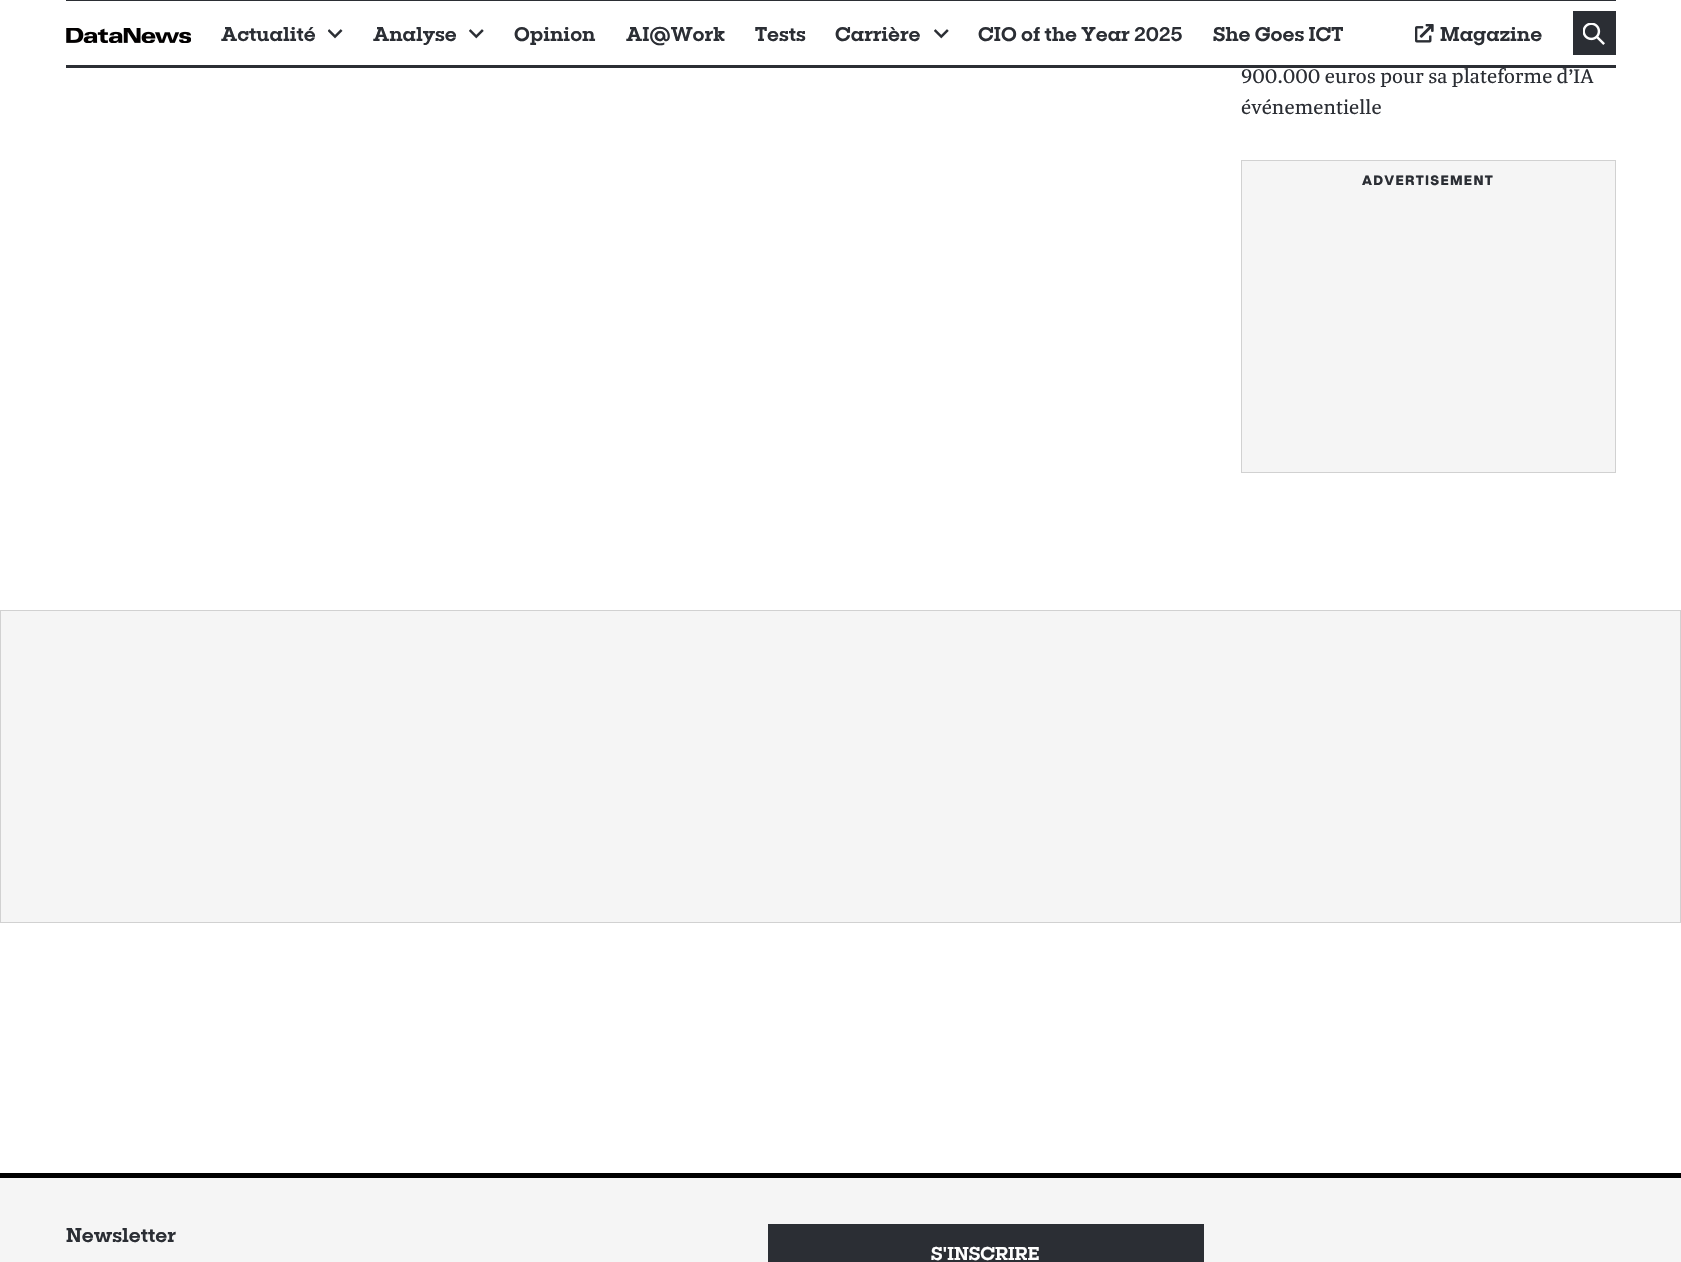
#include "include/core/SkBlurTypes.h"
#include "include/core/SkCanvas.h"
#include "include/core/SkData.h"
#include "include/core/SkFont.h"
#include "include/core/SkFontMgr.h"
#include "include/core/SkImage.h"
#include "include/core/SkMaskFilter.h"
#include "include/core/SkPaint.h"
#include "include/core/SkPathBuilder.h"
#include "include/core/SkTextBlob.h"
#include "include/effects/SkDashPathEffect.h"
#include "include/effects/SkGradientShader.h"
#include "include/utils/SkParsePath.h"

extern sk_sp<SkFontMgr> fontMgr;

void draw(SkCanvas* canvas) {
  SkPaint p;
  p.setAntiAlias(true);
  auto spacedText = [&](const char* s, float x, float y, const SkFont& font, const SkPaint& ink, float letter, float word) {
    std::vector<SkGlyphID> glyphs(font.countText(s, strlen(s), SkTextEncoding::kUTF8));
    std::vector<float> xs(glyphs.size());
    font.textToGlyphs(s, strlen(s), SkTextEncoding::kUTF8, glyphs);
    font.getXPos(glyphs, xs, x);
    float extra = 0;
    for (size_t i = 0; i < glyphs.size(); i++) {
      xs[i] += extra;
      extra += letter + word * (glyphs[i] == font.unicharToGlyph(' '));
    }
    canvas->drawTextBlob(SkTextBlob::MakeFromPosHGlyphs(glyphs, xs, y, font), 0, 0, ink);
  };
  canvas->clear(SK_ColorWHITE);
  p.setColor(SkColorSetRGB(43, 46, 52));
  canvas->drawRect(SkRect::MakeLTRB(66, 0, 1616, 1), p);
  canvas->drawRect(SkRect::MakeLTRB(66, 65, 1616, 68), p);
  canvas->drawImageRect(SkImages::DeferredFromEncodedData(SkData::MakeFromFileName("images/1.png")), SkRect::MakeLTRB(66, 28, 191, 43), SkSamplingOptions());
  canvas->drawImageRect(SkImages::DeferredFromEncodedData(SkData::MakeFromFileName("images/2.png")), SkRect::MakeLTRB(328, 29, 343, 39), SkSamplingOptions());
  canvas->drawImageRect(SkImages::DeferredFromEncodedData(SkData::MakeFromFileName("images/3.png")), SkRect::MakeLTRB(469, 29, 484, 39), SkSamplingOptions());
  canvas->drawImageRect(SkImages::DeferredFromEncodedData(SkData::MakeFromFileName("images/3.png")), SkRect::MakeLTRB(934, 29, 949, 39), SkSamplingOptions());
  canvas->drawImageRect(SkImages::DeferredFromEncodedData(SkData::MakeFromFileName("images/4.png")), SkRect::MakeLTRB(1415, 24, 1434, 43), SkSamplingOptions());
  canvas->drawRect(SkRect::MakeLTRB(1573, 11, 1616, 55), p);
  canvas->drawImageRect(SkImages::DeferredFromEncodedData(SkData::MakeFromFileName("images/5.png")), SkRect::MakeLTRB(1583, 23, 1605, 45), SkSamplingOptions());
  p.setColor(SkColorSetRGB(245, 245, 245));
  canvas->drawRect(SkRect::MakeLTRB(1241.5f, 160.5f, 1615.5f, 472.5f), p);
  p.setStyle(SkPaint::kStroke_Style);
  p.setStrokeWidth(1);
  p.setColor(SkColorSetRGB(209, 209, 209));
  canvas->drawRect(SkRect::MakeLTRB(1241.5f, 160.5f, 1615.5f, 472.5f), p);
  p.setStyle(SkPaint::kFill_Style);
  p.setColor(SkColorSetRGB(245, 245, 245));
  canvas->drawRect(SkRect::MakeLTRB(0.5f, 610.5f, 1680.5f, 922.5f), p);
  p.setStyle(SkPaint::kStroke_Style);
  p.setColor(SkColorSetRGB(209, 209, 209));
  canvas->drawRect(SkRect::MakeLTRB(0.5f, 610.5f, 1680.5f, 922.5f), p);
  p.setStyle(SkPaint::kFill_Style);
  p.setColor(SkColorSetRGB(245, 245, 245));
  canvas->drawRect(SkRect::MakeLTRB(0, 1178, 1681, 1262), p);
  p.setColor(SK_ColorBLACK);
  canvas->drawRect(SkRect::MakeLTRB(0, 1173, 1681, 1178), p);
  p.setColor(SkColorSetRGB(43, 46, 52));
  canvas->drawRect(SkRect::MakeLTRB(768, 1224, 1204, 1262), p);
  SkFont font1(fontMgr->matchFamilyStyle("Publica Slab", SkFontStyle(500, SkFontStyle::kNormal_Width, SkFontStyle::kUpright_Slant)), 20);
  font1.setSubpixel(true);
  canvas->drawString("Actualité", 221, 41, font1, p);
  canvas->drawString("Analyse", 373, 41, font1, p);
  canvas->drawString("Opinion", 514, 41, font1, p);
  canvas->drawString("AI@Work", 626, 41, font1, p);
  canvas->drawString("Tests", 755, 41, font1, p);
  canvas->drawString("Carrière", 835, 41, font1, p);
  canvas->drawString("CIO of the Year 2025", 978, 41, font1, p);
  canvas->drawString("She Goes ICT", 1213, 41, font1, p);
  canvas->drawString("Magazine", 1440, 41, font1, p);
  SkFont font2(fontMgr->matchFamilyStyle("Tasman", SkFontStyle::Normal()), 21.25f);
  font2.setSubpixel(true);
  canvas->drawString("900.000 euros pour sa plateforme d’IA", 1241, 83, font2, p);
  canvas->drawString("événementielle", 1241, 114, font2, p);
  SkFont font3(fontMgr->matchFamilyStyle("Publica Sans", SkFontStyle::Bold()), 13.75f);
  font3.setSubpixel(true);
  spacedText("ADVERTISEMENT", 1362, 185, font3, p, 1.25f, 0);
  canvas->drawString("Newsletter", 66, 1242, font1, p);
  SkFont font4(fontMgr->matchFamilyStyle("Publica Slab", SkFontStyle(500, SkFontStyle::kNormal_Width, SkFontStyle::kUpright_Slant)), 18.75f);
  font4.setSubpixel(true);
  p.setColor(SK_ColorWHITE);
  canvas->drawString("S'INSCRIRE", 931, 1260, font4, p);
}
